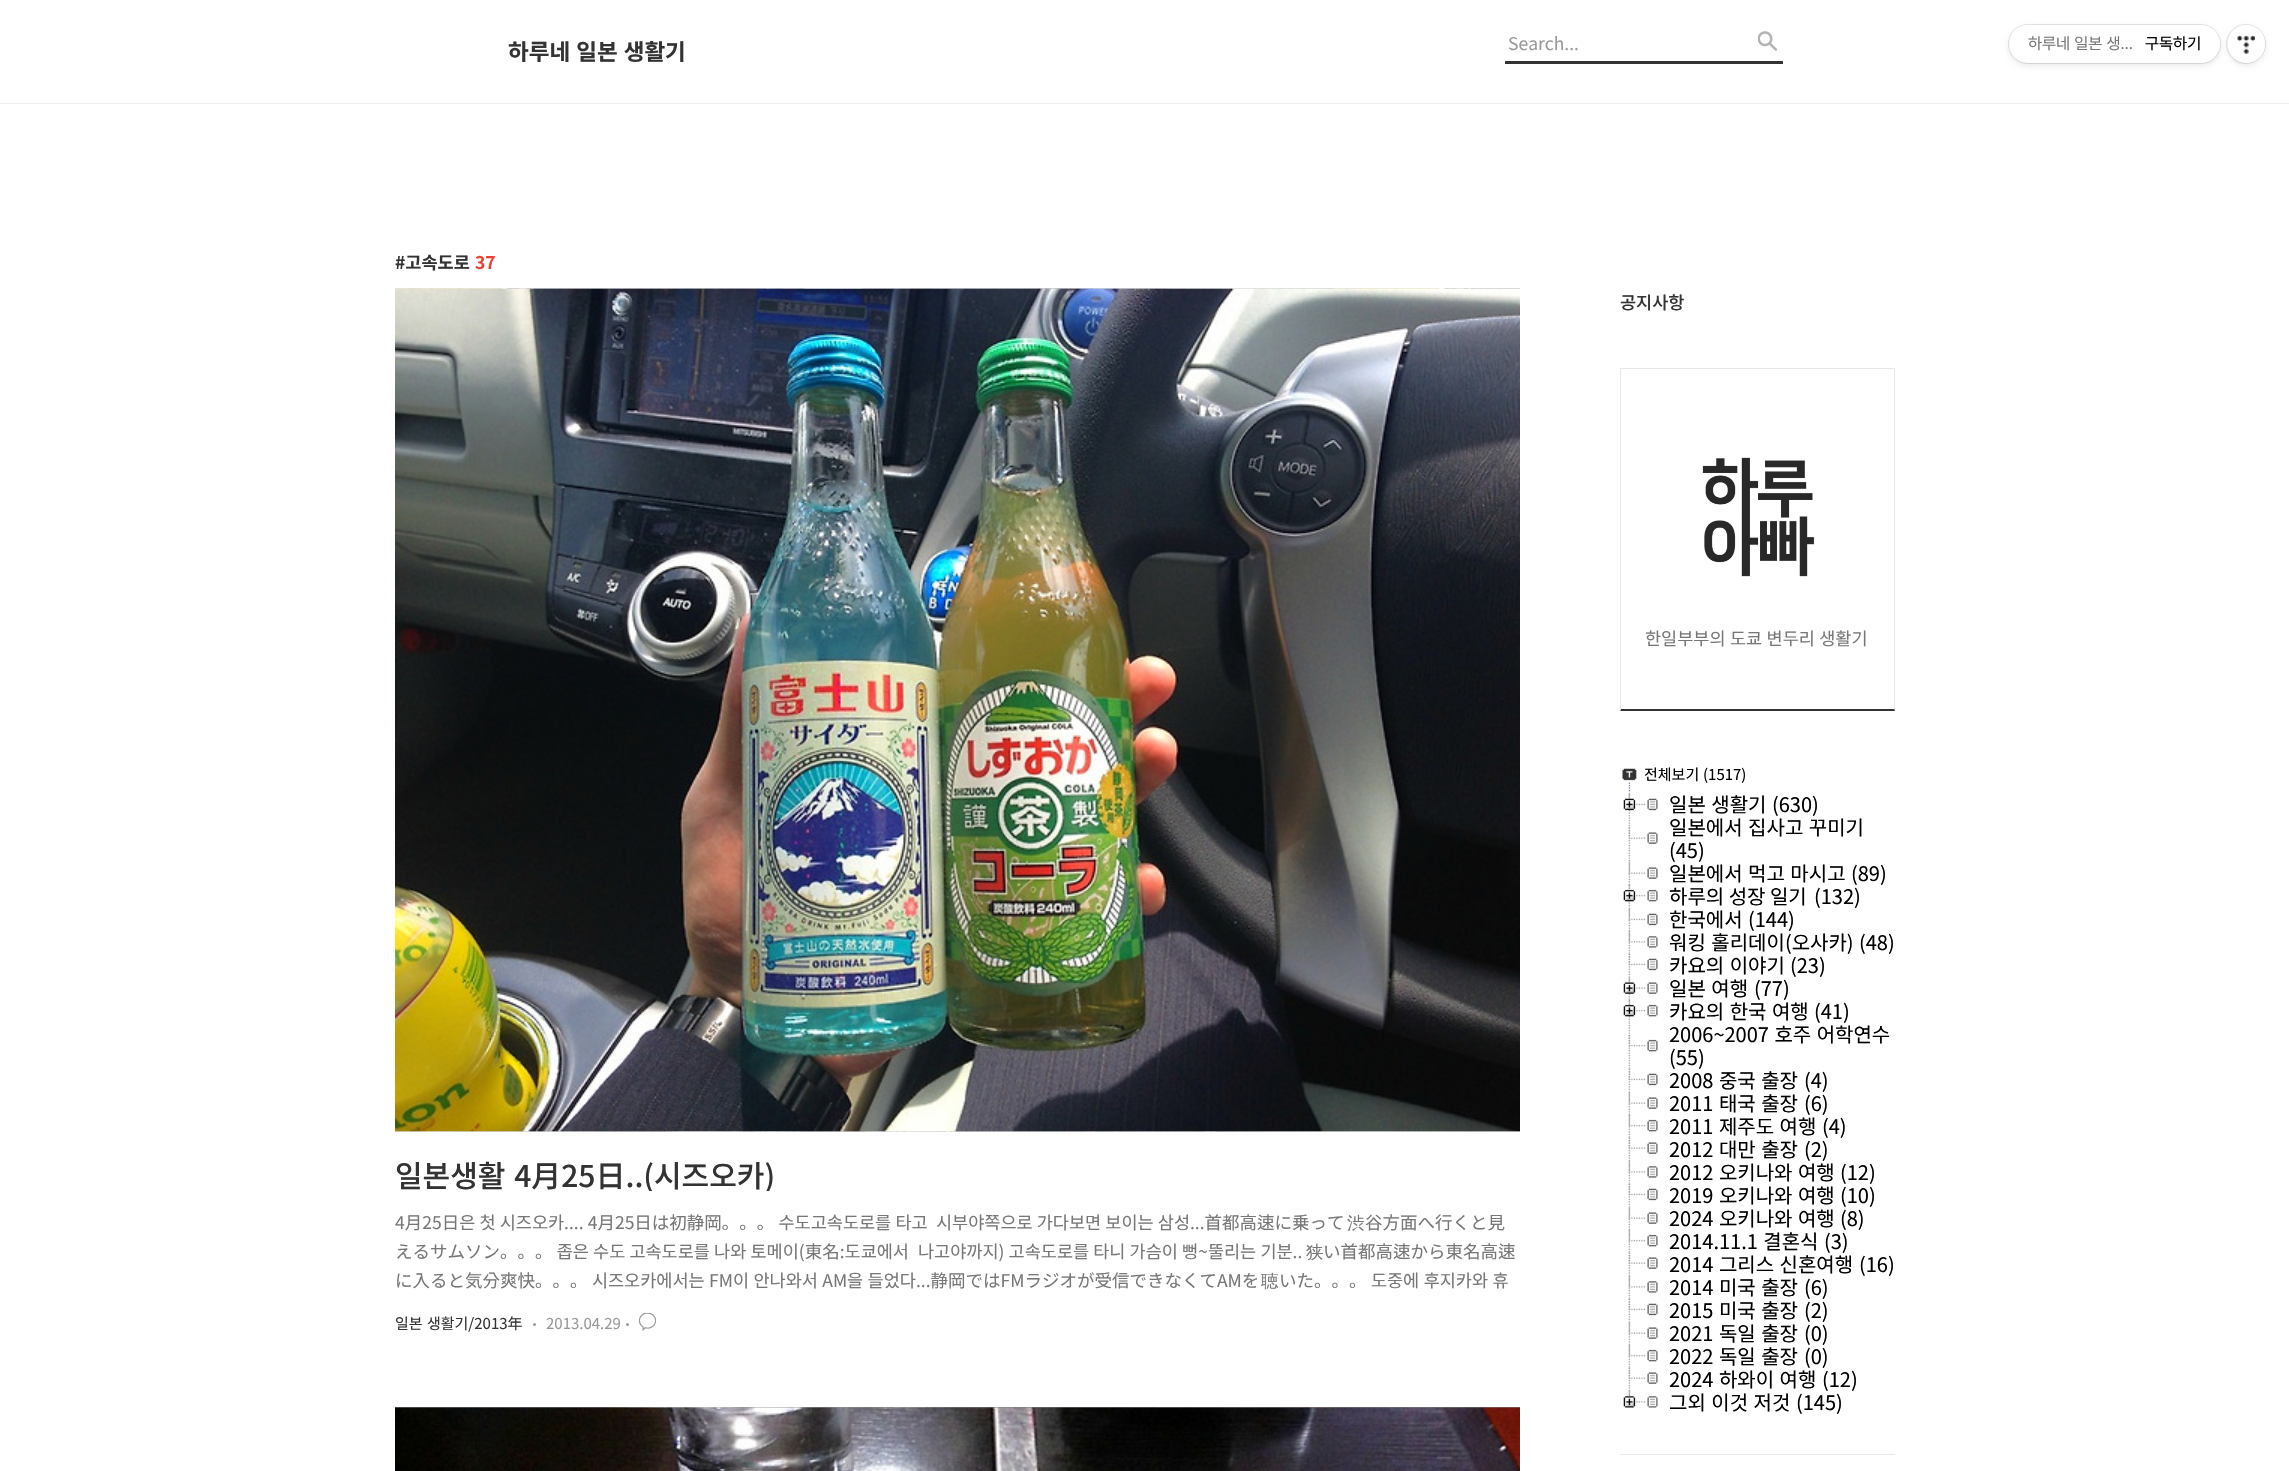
#include "include/core/SkBlurTypes.h"
#include "include/core/SkCanvas.h"
#include "include/core/SkData.h"
#include "include/core/SkFont.h"
#include "include/core/SkFontMgr.h"
#include "include/core/SkImage.h"
#include "include/core/SkMaskFilter.h"
#include "include/core/SkPaint.h"
#include "include/core/SkPathBuilder.h"
#include "include/core/SkTextBlob.h"
#include "include/effects/SkDashPathEffect.h"
#include "include/effects/SkGradientShader.h"
#include "include/utils/SkParsePath.h"

extern sk_sp<SkFontMgr> fontMgr;

void draw(SkCanvas* canvas) {
  SkPaint p;
  p.setAntiAlias(true);
  auto spacedText = [&](const char* s, float x, float y, const SkFont& font, const SkPaint& ink, float letter, float word) {
    std::vector<SkGlyphID> glyphs(font.countText(s, strlen(s), SkTextEncoding::kUTF8));
    std::vector<float> xs(glyphs.size());
    font.textToGlyphs(s, strlen(s), SkTextEncoding::kUTF8, glyphs);
    font.getXPos(glyphs, xs, x);
    float extra = 0;
    for (size_t i = 0; i < glyphs.size(); i++) {
      xs[i] += extra;
      extra += letter + word * (glyphs[i] == font.unicharToGlyph(' '));
    }
    canvas->drawTextBlob(SkTextBlob::MakeFromPosHGlyphs(glyphs, xs, y, font), 0, 0, ink);
  };
  canvas->clear(SK_ColorWHITE);
  p.setColor(SkColorSetRGB(239, 239, 239));
  canvas->drawRect(SkRect::MakeLTRB(0, 103, 2289, 104), p);
  canvas->drawImageRect(SkImages::DeferredFromEncodedData(SkData::MakeFromFileName("images/1.png")), SkRect::MakeLTRB(1758, 31, 1777, 51), SkSamplingOptions());
  p.setColor(SkColorSetRGB(51, 51, 51));
  canvas->drawRect(SkRect::MakeLTRB(1505, 61, 1783, 64), p);
  canvas->drawImageRect(SkImages::DeferredFromEncodedData(SkData::MakeFromFileName("images/2.png")), SkRect::MakeLTRB(395, 288, 1520, 1132), SkSamplingOptions());
  canvas->drawImageRect(SkImages::DeferredFromEncodedData(SkData::MakeFromFileName("images/3.png")), SkRect::MakeLTRB(395, 288, 1520, 1132), SkSamplingOptions());
  p.setColor(SkColorSetRGB(153, 153, 153));
  canvas->drawCircle(534.5f, 1324.5f, 1.5f, p);
  canvas->drawImageRect(SkImages::DeferredFromEncodedData(SkData::MakeFromFileName("images/4.png")), SkRect::MakeLTRB(639, 1313, 656, 1331), SkSamplingOptions());
  canvas->drawCircle(627.5f, 1324.5f, 1.5f, p);
  canvas->drawImageRect(SkImages::DeferredFromEncodedData(SkData::MakeFromFileName("images/5.png")), SkRect::MakeLTRB(395, 1407, 1520, 1408), SkSamplingOptions());
  canvas->drawImageRect(SkImages::DeferredFromEncodedData(SkData::MakeFromFileName("images/6.png")), SkRect::MakeLTRB(395, 1407, 1520, 1471), SkSamplingOptions());
  p.setColor(SkColorSetRGB(232, 232, 232));
  canvas->drawRect(SkRect::MakeLTRB(1620, 368, 1895, 369), p);
  canvas->drawPath(SkPathBuilder().moveTo(1895, 368).lineTo(1895, 711).lineTo(1894, 709).lineTo(1894, 369).close().detach(), p);
  p.setColor(SkColorSetRGB(51, 51, 51));
  canvas->drawPath(SkPathBuilder().moveTo(1895, 711).lineTo(1620, 711).lineTo(1621, 709).lineTo(1894, 709).close().detach(), p);
  p.setColor(SkColorSetRGB(232, 232, 232));
  canvas->drawPath(SkPathBuilder().moveTo(1620, 711).lineTo(1620, 368).lineTo(1621, 369).lineTo(1621, 709).close().detach(), p);
  canvas->drawImageRect(SkImages::DeferredFromEncodedData(SkData::MakeFromFileName("images/7.png")), SkRect::MakeLTRB(1702, 457, 1815, 577), SkSamplingOptions());
  canvas->drawRect(SkRect::MakeLTRB(1620, 1454, 1895, 1455), p);
  canvas->drawImageRect(SkImages::DeferredFromEncodedData(SkData::MakeFromFileName("images/8.png")), SkRect::MakeLTRB(1622, 768, 1637, 792), SkSamplingOptions());
  canvas->drawImageRect(SkImages::DeferredFromEncodedData(SkData::MakeFromFileName("images/9.png")), SkRect::MakeLTRB(1628, 792, 1631, 815), SkSamplingOptions());
  canvas->drawImageRect(SkImages::DeferredFromEncodedData(SkData::MakeFromFileName("images/10.png")), SkRect::MakeLTRB(1623, 793, 1658, 811), SkSamplingOptions());
  canvas->drawImageRect(SkImages::DeferredFromEncodedData(SkData::MakeFromFileName("images/11.png")), SkRect::MakeLTRB(1628, 815, 1631, 862), SkSamplingOptions());
  canvas->drawImageRect(SkImages::DeferredFromEncodedData(SkData::MakeFromFileName("images/12.png")), SkRect::MakeLTRB(1628, 827, 1658, 844), SkSamplingOptions());
  canvas->drawImageRect(SkImages::DeferredFromEncodedData(SkData::MakeFromFileName("images/13.png")), SkRect::MakeLTRB(1628, 861, 1631, 885), SkSamplingOptions());
  canvas->drawImageRect(SkImages::DeferredFromEncodedData(SkData::MakeFromFileName("images/14.png")), SkRect::MakeLTRB(1628, 862, 1658, 879), SkSamplingOptions());
  canvas->drawImageRect(SkImages::DeferredFromEncodedData(SkData::MakeFromFileName("images/15.png")), SkRect::MakeLTRB(1628, 885, 1631, 908), SkSamplingOptions());
  canvas->drawImageRect(SkImages::DeferredFromEncodedData(SkData::MakeFromFileName("images/16.png")), SkRect::MakeLTRB(1623, 885, 1658, 902), SkSamplingOptions());
  canvas->drawImageRect(SkImages::DeferredFromEncodedData(SkData::MakeFromFileName("images/17.png")), SkRect::MakeLTRB(1628, 907, 1631, 930), SkSamplingOptions());
  canvas->drawImageRect(SkImages::DeferredFromEncodedData(SkData::MakeFromFileName("images/18.png")), SkRect::MakeLTRB(1628, 908, 1658, 926), SkSamplingOptions());
  canvas->drawImageRect(SkImages::DeferredFromEncodedData(SkData::MakeFromFileName("images/19.png")), SkRect::MakeLTRB(1628, 930, 1631, 954), SkSamplingOptions());
  canvas->drawImageRect(SkImages::DeferredFromEncodedData(SkData::MakeFromFileName("images/20.png")), SkRect::MakeLTRB(1628, 931, 1658, 948), SkSamplingOptions());
  canvas->drawImageRect(SkImages::DeferredFromEncodedData(SkData::MakeFromFileName("images/21.png")), SkRect::MakeLTRB(1628, 954, 1631, 977), SkSamplingOptions());
  canvas->drawImageRect(SkImages::DeferredFromEncodedData(SkData::MakeFromFileName("images/22.png")), SkRect::MakeLTRB(1628, 953, 1658, 971), SkSamplingOptions());
  canvas->drawImageRect(SkImages::DeferredFromEncodedData(SkData::MakeFromFileName("images/23.png")), SkRect::MakeLTRB(1628, 976, 1631, 999), SkSamplingOptions());
  canvas->drawImageRect(SkImages::DeferredFromEncodedData(SkData::MakeFromFileName("images/24.png")), SkRect::MakeLTRB(1623, 977, 1658, 994), SkSamplingOptions());
  canvas->drawImageRect(SkImages::DeferredFromEncodedData(SkData::MakeFromFileName("images/25.png")), SkRect::MakeLTRB(1628, 998, 1631, 1023), SkSamplingOptions());
  canvas->drawImageRect(SkImages::DeferredFromEncodedData(SkData::MakeFromFileName("images/26.png")), SkRect::MakeLTRB(1623, 1000, 1658, 1017), SkSamplingOptions());
  canvas->drawImageRect(SkImages::DeferredFromEncodedData(SkData::MakeFromFileName("images/27.png")), SkRect::MakeLTRB(1628, 1022, 1631, 1069), SkSamplingOptions());
  canvas->drawImageRect(SkImages::DeferredFromEncodedData(SkData::MakeFromFileName("images/28.png")), SkRect::MakeLTRB(1628, 1035, 1658, 1052), SkSamplingOptions());
  canvas->drawImageRect(SkImages::DeferredFromEncodedData(SkData::MakeFromFileName("images/21.png")), SkRect::MakeLTRB(1628, 1069, 1631, 1092), SkSamplingOptions());
  canvas->drawImageRect(SkImages::DeferredFromEncodedData(SkData::MakeFromFileName("images/22.png")), SkRect::MakeLTRB(1628, 1068, 1658, 1086), SkSamplingOptions());
  canvas->drawImageRect(SkImages::DeferredFromEncodedData(SkData::MakeFromFileName("images/23.png")), SkRect::MakeLTRB(1628, 1091, 1631, 1114), SkSamplingOptions());
  canvas->drawImageRect(SkImages::DeferredFromEncodedData(SkData::MakeFromFileName("images/14.png")), SkRect::MakeLTRB(1628, 1092, 1658, 1109), SkSamplingOptions());
  canvas->drawImageRect(SkImages::DeferredFromEncodedData(SkData::MakeFromFileName("images/25.png")), SkRect::MakeLTRB(1628, 1113, 1631, 1138), SkSamplingOptions());
  canvas->drawImageRect(SkImages::DeferredFromEncodedData(SkData::MakeFromFileName("images/29.png")), SkRect::MakeLTRB(1628, 1115, 1658, 1132), SkSamplingOptions());
  canvas->drawImageRect(SkImages::DeferredFromEncodedData(SkData::MakeFromFileName("images/17.png")), SkRect::MakeLTRB(1628, 1137, 1631, 1160), SkSamplingOptions());
  canvas->drawImageRect(SkImages::DeferredFromEncodedData(SkData::MakeFromFileName("images/30.png")), SkRect::MakeLTRB(1628, 1137, 1658, 1154), SkSamplingOptions());
  canvas->drawImageRect(SkImages::DeferredFromEncodedData(SkData::MakeFromFileName("images/19.png")), SkRect::MakeLTRB(1628, 1160, 1631, 1184), SkSamplingOptions());
  canvas->drawImageRect(SkImages::DeferredFromEncodedData(SkData::MakeFromFileName("images/31.png")), SkRect::MakeLTRB(1628, 1161, 1658, 1178), SkSamplingOptions());
  canvas->drawImageRect(SkImages::DeferredFromEncodedData(SkData::MakeFromFileName("images/21.png")), SkRect::MakeLTRB(1628, 1184, 1631, 1207), SkSamplingOptions());
  canvas->drawImageRect(SkImages::DeferredFromEncodedData(SkData::MakeFromFileName("images/22.png")), SkRect::MakeLTRB(1628, 1183, 1658, 1201), SkSamplingOptions());
  canvas->drawImageRect(SkImages::DeferredFromEncodedData(SkData::MakeFromFileName("images/23.png")), SkRect::MakeLTRB(1628, 1206, 1631, 1229), SkSamplingOptions());
  canvas->drawImageRect(SkImages::DeferredFromEncodedData(SkData::MakeFromFileName("images/14.png")), SkRect::MakeLTRB(1628, 1207, 1658, 1224), SkSamplingOptions());
  canvas->drawImageRect(SkImages::DeferredFromEncodedData(SkData::MakeFromFileName("images/25.png")), SkRect::MakeLTRB(1628, 1228, 1631, 1253), SkSamplingOptions());
  canvas->drawImageRect(SkImages::DeferredFromEncodedData(SkData::MakeFromFileName("images/29.png")), SkRect::MakeLTRB(1628, 1230, 1658, 1247), SkSamplingOptions());
  canvas->drawImageRect(SkImages::DeferredFromEncodedData(SkData::MakeFromFileName("images/17.png")), SkRect::MakeLTRB(1628, 1252, 1631, 1275), SkSamplingOptions());
  canvas->drawImageRect(SkImages::DeferredFromEncodedData(SkData::MakeFromFileName("images/30.png")), SkRect::MakeLTRB(1628, 1252, 1658, 1269), SkSamplingOptions());
  canvas->drawImageRect(SkImages::DeferredFromEncodedData(SkData::MakeFromFileName("images/19.png")), SkRect::MakeLTRB(1628, 1275, 1631, 1299), SkSamplingOptions());
  canvas->drawImageRect(SkImages::DeferredFromEncodedData(SkData::MakeFromFileName("images/20.png")), SkRect::MakeLTRB(1628, 1276, 1658, 1293), SkSamplingOptions());
  canvas->drawImageRect(SkImages::DeferredFromEncodedData(SkData::MakeFromFileName("images/21.png")), SkRect::MakeLTRB(1628, 1299, 1631, 1322), SkSamplingOptions());
  canvas->drawImageRect(SkImages::DeferredFromEncodedData(SkData::MakeFromFileName("images/22.png")), SkRect::MakeLTRB(1628, 1298, 1658, 1316), SkSamplingOptions());
  canvas->drawImageRect(SkImages::DeferredFromEncodedData(SkData::MakeFromFileName("images/23.png")), SkRect::MakeLTRB(1628, 1321, 1631, 1344), SkSamplingOptions());
  canvas->drawImageRect(SkImages::DeferredFromEncodedData(SkData::MakeFromFileName("images/14.png")), SkRect::MakeLTRB(1628, 1322, 1658, 1339), SkSamplingOptions());
  canvas->drawImageRect(SkImages::DeferredFromEncodedData(SkData::MakeFromFileName("images/25.png")), SkRect::MakeLTRB(1628, 1343, 1631, 1368), SkSamplingOptions());
  canvas->drawImageRect(SkImages::DeferredFromEncodedData(SkData::MakeFromFileName("images/29.png")), SkRect::MakeLTRB(1628, 1345, 1658, 1362), SkSamplingOptions());
  canvas->drawImageRect(SkImages::DeferredFromEncodedData(SkData::MakeFromFileName("images/17.png")), SkRect::MakeLTRB(1628, 1367, 1631, 1390), SkSamplingOptions());
  canvas->drawImageRect(SkImages::DeferredFromEncodedData(SkData::MakeFromFileName("images/30.png")), SkRect::MakeLTRB(1628, 1367, 1658, 1384), SkSamplingOptions());
  canvas->drawImageRect(SkImages::DeferredFromEncodedData(SkData::MakeFromFileName("images/32.png")), SkRect::MakeLTRB(1628, 1390, 1631, 1397), SkSamplingOptions());
  canvas->drawImageRect(SkImages::DeferredFromEncodedData(SkData::MakeFromFileName("images/33.png")), SkRect::MakeLTRB(1623, 1391, 1658, 1408), SkSamplingOptions());
  p.setColor(SkColorSetARGB(26, 0, 0, 0));
  p.setMaskFilter(SkMaskFilter::MakeBlur(kNormal_SkBlurStyle, 3));
  canvas->drawRoundRect(SkRect::MakeLTRB(2228, 28, 2265, 65), 18.5f, 18.5f, p);
  p.setMaskFilter(nullptr);
  p.setStyle(SkPaint::kStroke_Style);
  p.setStrokeWidth(1);
  canvas->drawCircle(2246, 44, 19.5f, p);
  p.setStyle(SkPaint::kFill_Style);
  p.setColor(SK_ColorWHITE);
  canvas->drawRoundRect(SkRect::MakeLTRB(2228, 25, 2265, 63), 18.5f, 18.5f, p);
  p.setColor(SkColorSetARGB(26, 0, 0, 0));
  p.setMaskFilter(SkMaskFilter::MakeBlur(kNormal_SkBlurStyle, 3));
  canvas->drawRoundRect(SkRect::MakeLTRB(2009, 28, 2220, 65), 18.5f, 18.5f, p);
  p.setMaskFilter(nullptr);
  p.setStyle(SkPaint::kStroke_Style);
  canvas->drawRoundRect(SkRect::MakeLTRB(2008.5f, 24.5f, 2220.5f, 63.5f), 19.5f, 19.5f, p);
  p.setStyle(SkPaint::kFill_Style);
  p.setColor(SK_ColorWHITE);
  canvas->drawRoundRect(SkRect::MakeLTRB(2009, 25, 2220, 63), 19, 19, p);
  canvas->drawImageRect(SkImages::DeferredFromEncodedData(SkData::MakeFromFileName("images/34.png")), SkRect::MakeLTRB(2237, 35, 2255, 54), SkSamplingOptions());
  SkFont font1(fontMgr->matchFamilyStyle("Noto Sans KR", SkFontStyle::Bold()), 22.5f);
  font1.setSubpixel(true);
  p.setColor(SkColorSetRGB(51, 51, 51));
  spacedText("하루네 일본 생활기", 508, 60, font1, p, 0, 1);
  SkFont font2(fontMgr->matchFamilyStyle("Noto Sans KR", SkFontStyle::Normal()), 17.5f);
  font2.setSubpixel(true);
  p.setColor(SkColorSetRGB(153, 153, 153));
  canvas->drawString("Search...", 1508, 50, font2, p);
  SkFont font3(fontMgr->matchFamilyStyle("Noto Sans KR", SkFontStyle::Bold()), 17.5f);
  font3.setSubpixel(true);
  p.setColor(SkColorSetRGB(51, 51, 51));
  canvas->drawString("#고속도로", 395, 269, font3, p);
  p.setColor(SkColorSetRGB(239, 64, 47));
  canvas->drawString("37", 475, 269, font3, p);
  canvas->save();
  canvas->clipRect(SkRect::MakeLTRB(395, 1156, 1520, 1191));
  SkFont font4(fontMgr->matchFamilyStyle("Noto Sans KR", SkFontStyle(500, SkFontStyle::kNormal_Width, SkFontStyle::kUpright_Slant)), 30);
  font4.setSubpixel(true);
  p.setColor(SkColorSetRGB(51, 51, 51));
  spacedText("일본생활 4月25日..(시즈오카)", 395, 1187, font4, p, 0, 2);
  canvas->restore();
  SkFont font5(fontMgr->matchFamilyStyle("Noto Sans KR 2", SkFontStyle::Normal()), 17.5f);
  font5.setSubpixel(true);
  p.setColor(SkColorSetRGB(119, 119, 119));
  spacedText("4月25日은 첫 시즈오카.... 4月25日は初静岡。。。 수도고속도로를 타고", 395, 1229, font5, p, 0, 0.25f);
  spacedText("시부야쪽으로 가다보면 보이는 삼성...首都高速に乗って", 936, 1229, font5, p, 0, 0.25f);
  SkFont font6(fontMgr->matchFamilyStyle("WenQuanYi Zen Hei", SkFontStyle(500, SkFontStyle::kNormal_Width, SkFontStyle::kUpright_Slant)), 17.5f);
  font6.setSubpixel(true);
  canvas->drawString("渋", 1347, 1229, font6, p);
  canvas->drawString("谷方面へ行くと見", 1365, 1229, font5, p);
  spacedText("えるサムソン。。。 좁은 수도 고속도로를 나와 토메이(東名:도쿄에서", 395, 1258, font5, p, 0, 0.25f);
  spacedText("나고야까지) 고속도로를 타니 가슴이 뻥~뚤리는 기분..", 918, 1258, font5, p, 0, 0.25f);
  canvas->drawString("狭", 1306, 1258, font6, p);
  canvas->drawString("い首都高速から東名高速", 1323, 1258, font5, p);
  spacedText("に入ると気分爽快。。。 시즈오카에서는 FM이 안나와서 AM을 들었다...静岡ではFMラジオが受信できなくてAMを", 395, 1287, font5, p, 0, 0.5f);
  canvas->drawString("聴", 1261, 1287, font6, p);
  spacedText("いた。。。 도중에 후지카와 휴", 1279, 1287, font5, p, 0, 0.5f);
  SkFont font7(fontMgr->matchFamilyStyle("Noto Sans KR", SkFontStyle::Normal()), 15);
  font7.setSubpixel(true);
  p.setColor(SkColorSetRGB(51, 51, 51));
  spacedText("일본 생활기/2013年", 395, 1329, font7, p, 0, 1);
  p.setColor(SkColorSetRGB(153, 153, 153));
  canvas->drawString("2013.04.29", 546, 1329, font7, p);
  SkFont font8(fontMgr->matchFamilyStyle("Noto Sans KR", SkFontStyle(500, SkFontStyle::kNormal_Width, SkFontStyle::kUpright_Slant)), 17.5f);
  font8.setSubpixel(true);
  p.setColor(SkColorSetRGB(51, 51, 51));
  canvas->drawString("공지사항", 1620, 309, font8, p);
  p.setColor(SkColorSetRGB(119, 119, 119));
  spacedText("한일부부의 도쿄 변두리 생활기", 1645, 645, font2, p, 0, 0.5f);
  p.setColor(SK_ColorBLACK);
  canvas->drawString("전체보기", 1644, 780, font7, p);
  canvas->drawString("(1517)", 1703, 780, font7, p);
  SkFont font9(fontMgr->matchFamilyStyle("Noto Sans KR", SkFontStyle::Normal()), 20);
  font9.setSubpixel(true);
  spacedText("일본 생활기", 1669, 812, font9, p, 0, 1);
  canvas->drawString("(630)", 1772, 812, font9, p);
  spacedText("일본에서 집사고 꾸미기", 1669, 835, font9, p, 0, 1);
  canvas->drawString("(45)", 1669, 858, font9, p);
  spacedText("일본에서 먹고 마시고", 1669, 881, font9, p, 0, 1);
  canvas->drawString("(89)", 1851, 881, font9, p);
  canvas->drawString("하루의 성장 일기", 1669, 904, font9, p);
  canvas->drawString("(132)", 1814, 904, font9, p);
  canvas->drawString("한국에서", 1669, 927, font9, p);
  canvas->drawString("(144)", 1748, 927, font9, p);
  spacedText("워킹 홀리데이(오사카)", 1669, 950, font9, p, 0, 1);
  canvas->drawString("(48)", 1859, 950, font9, p);
  spacedText("카요의 이야기", 1669, 973, font9, p, 0, 1);
  canvas->drawString("(23)", 1790, 973, font9, p);
  spacedText("일본 여행", 1669, 996, font9, p, 0, 1);
  canvas->drawString("(77)", 1754, 996, font9, p);
  spacedText("카요의 한국 여행", 1669, 1019, font9, p, 0, 1);
  canvas->drawString("(41)", 1814, 1019, font9, p);
  spacedText("2006~2007 호주 어학연수", 1669, 1042, font9, p, 0, 1);
  canvas->drawString("(55)", 1669, 1065, font9, p);
  spacedText("2008 중국 출장", 1669, 1088, font9, p, 0, 1);
  canvas->drawString("(4)", 1804, 1088, font9, p);
  spacedText("2011 태국 출장", 1669, 1111, font9, p, 0, 1);
  canvas->drawString("(6)", 1804, 1111, font9, p);
  spacedText("2011 제주도 여행", 1669, 1134, font9, p, 0, 1);
  canvas->drawString("(4)", 1822, 1134, font9, p);
  spacedText("2012 대만 출장", 1669, 1157, font9, p, 0, 1);
  canvas->drawString("(2)", 1804, 1157, font9, p);
  spacedText("2012 오키나와 여행", 1669, 1180, font9, p, 0, 1);
  canvas->drawString("(12)", 1840, 1180, font9, p);
  spacedText("2019 오키나와 여행", 1669, 1203, font9, p, 0, 1);
  canvas->drawString("(10)", 1840, 1203, font9, p);
  spacedText("2024 오키나와 여행", 1669, 1226, font9, p, 0, 1);
  canvas->drawString("(8)", 1840, 1226, font9, p);
  spacedText("2014.11.1 결혼식", 1669, 1249, font9, p, 0, 1);
  canvas->drawString("(3)", 1824, 1249, font9, p);
  spacedText("2014 그리스 신혼여행", 1669, 1272, font9, p, 0, 1);
  canvas->drawString("(16)", 1859, 1272, font9, p);
  spacedText("2014 미국 출장", 1669, 1295, font9, p, 0, 1);
  canvas->drawString("(6)", 1804, 1295, font9, p);
  spacedText("2015 미국 출장", 1669, 1318, font9, p, 0, 1);
  canvas->drawString("(2)", 1804, 1318, font9, p);
  spacedText("2021 독일 출장", 1669, 1341, font9, p, 0, 1);
  canvas->drawString("(0)", 1804, 1341, font9, p);
  spacedText("2022 독일 출장", 1669, 1364, font9, p, 0, 1);
  canvas->drawString("(0)", 1804, 1364, font9, p);
  spacedText("2024 하와이 여행", 1669, 1387, font9, p, 0, 1);
  canvas->drawString("(12)", 1822, 1387, font9, p);
  spacedText("그외 이것 저것", 1669, 1410, font9, p, 0, 1);
  canvas->drawString("(145)", 1796, 1410, font9, p);
  SkFont font10(fontMgr->matchFamilyStyle("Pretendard", SkFontStyle::Normal()), 16.25f);
  font10.setSubpixel(true);
  p.setColor(SkColorSetRGB(119, 119, 119));
  canvas->drawString("하루네 일본 생…", 2028, 49, font10, p);
  p.setColor(SK_ColorBLACK);
  canvas->drawString("구독하기", 2145, 49, font10, p);
}
